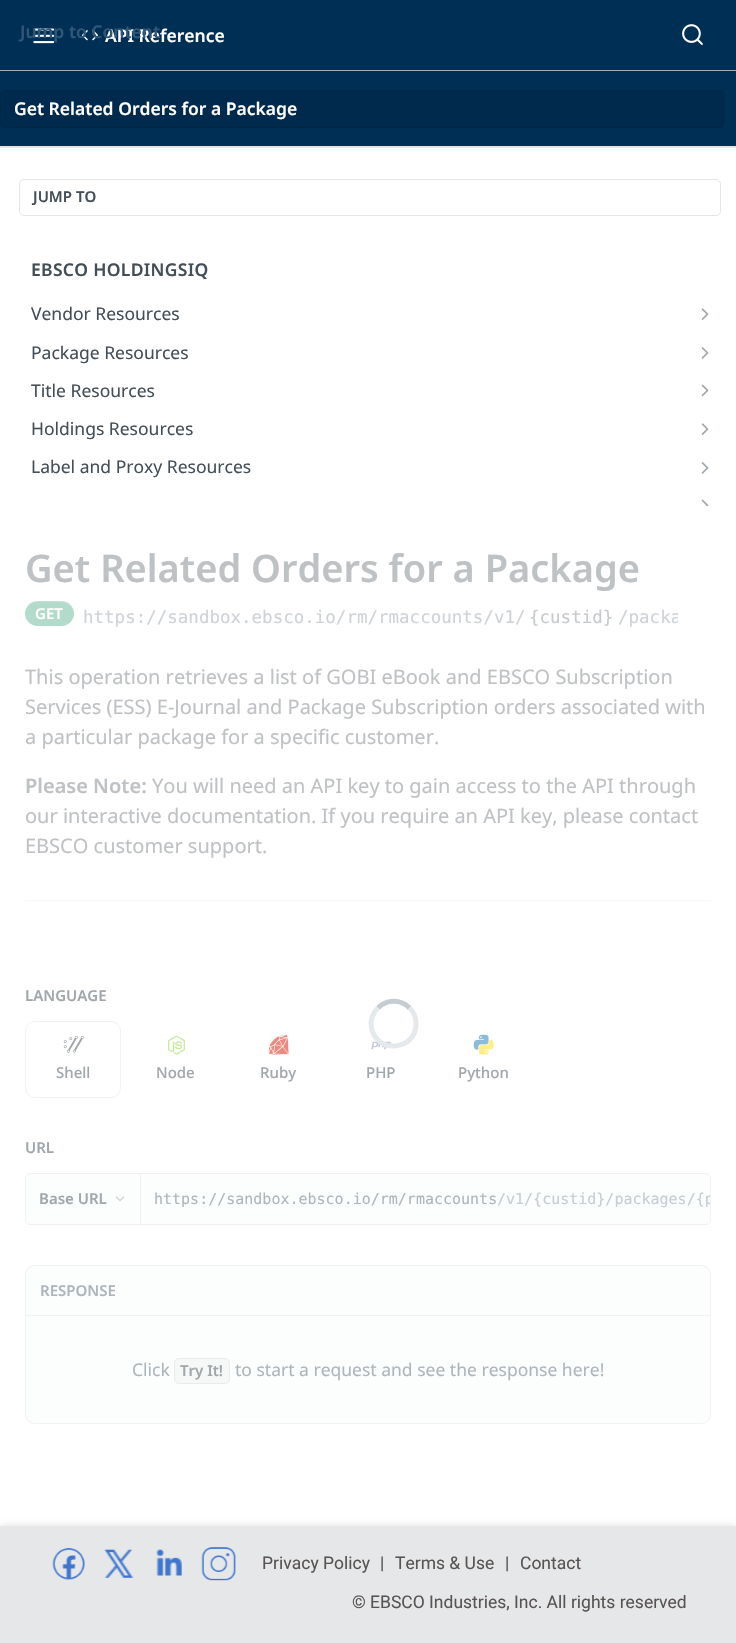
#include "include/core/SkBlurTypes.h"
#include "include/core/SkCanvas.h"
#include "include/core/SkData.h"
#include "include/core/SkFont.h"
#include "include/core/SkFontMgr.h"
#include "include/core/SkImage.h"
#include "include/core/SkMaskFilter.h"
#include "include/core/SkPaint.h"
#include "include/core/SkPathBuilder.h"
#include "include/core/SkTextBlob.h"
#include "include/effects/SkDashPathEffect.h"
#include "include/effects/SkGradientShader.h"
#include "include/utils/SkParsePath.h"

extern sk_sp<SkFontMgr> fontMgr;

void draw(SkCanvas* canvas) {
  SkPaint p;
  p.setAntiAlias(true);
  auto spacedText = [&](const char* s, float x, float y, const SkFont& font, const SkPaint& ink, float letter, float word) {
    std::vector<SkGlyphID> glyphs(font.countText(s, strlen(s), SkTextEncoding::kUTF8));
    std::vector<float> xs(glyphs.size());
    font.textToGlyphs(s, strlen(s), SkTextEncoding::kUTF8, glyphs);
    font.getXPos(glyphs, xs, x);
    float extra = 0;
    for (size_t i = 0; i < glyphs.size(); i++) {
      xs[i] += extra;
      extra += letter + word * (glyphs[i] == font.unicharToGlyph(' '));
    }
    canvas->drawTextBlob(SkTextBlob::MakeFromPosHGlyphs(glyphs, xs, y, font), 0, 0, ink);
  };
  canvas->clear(SK_ColorWHITE);
  p.setColor(SkColorSetRGB(230, 230, 230));
  canvas->drawRect(SkRect::MakeLTRB(0, 146, 736, 148), p);
  p.setColor(SkColorSetRGB(0, 47, 86));
  canvas->drawRect(SkRect::MakeLTRB(0, 0, 736, 146), p);
  p.setColor(SkColorSetRGB(153, 172, 187));
  canvas->drawRect(SkRect::MakeLTRB(0, 70, 736, 71), p);
  canvas->drawImageRect(SkImages::DeferredFromEncodedData(SkData::MakeFromFileName("images/1.png")), SkRect::MakeLTRB(33, 28, 55, 44), SkSamplingOptions());
  canvas->drawImageRect(SkImages::DeferredFromEncodedData(SkData::MakeFromFileName("images/2.png")), SkRect::MakeLTRB(82, 30, 98, 41), SkSamplingOptions());
  canvas->drawImageRect(SkImages::DeferredFromEncodedData(SkData::MakeFromFileName("images/3.png")), SkRect::MakeLTRB(682, 24, 703, 45), SkSamplingOptions());
  p.setColor(SkColorSetRGB(0, 42, 77));
  canvas->drawRoundRect(SkRect::MakeLTRB(0, 90, 724, 128), 5, 5, p);
  p.setStyle(SkPaint::kStroke_Style);
  p.setStrokeWidth(1);
  p.setColor(SkColorSetARGB(26, 0, 0, 0));
  canvas->drawRoundRect(SkRect::MakeLTRB(0.5f, 90.5f, 723.5f, 127.5f), 4.5f, 4.5f, p);
  p.setColor(SkColorSetRGB(230, 230, 230));
  canvas->drawRoundRect(SkRect::MakeLTRB(19.5f, 179.5f, 720.5f, 215.5f), 4.5f, 4.5f, p);
  canvas->drawImageRect(SkImages::DeferredFromEncodedData(SkData::MakeFromFileName("images/4.png")), SkRect::MakeLTRB(701, 308, 709, 320), SkSamplingOptions());
  canvas->drawImageRect(SkImages::DeferredFromEncodedData(SkData::MakeFromFileName("images/5.png")), SkRect::MakeLTRB(701, 347, 709, 359), SkSamplingOptions());
  canvas->drawImageRect(SkImages::DeferredFromEncodedData(SkData::MakeFromFileName("images/6.png")), SkRect::MakeLTRB(701, 384, 709, 397), SkSamplingOptions());
  canvas->drawImageRect(SkImages::DeferredFromEncodedData(SkData::MakeFromFileName("images/4.png")), SkRect::MakeLTRB(701, 423, 709, 435), SkSamplingOptions());
  canvas->drawImageRect(SkImages::DeferredFromEncodedData(SkData::MakeFromFileName("images/5.png")), SkRect::MakeLTRB(701, 462, 709, 474), SkSamplingOptions());
  canvas->drawImageRect(SkImages::DeferredFromEncodedData(SkData::MakeFromFileName("images/7.png")), SkRect::MakeLTRB(701, 499, 709, 506), SkSamplingOptions());
  p.setStyle(SkPaint::kFill_Style);
  p.setColor(SkColorSetRGB(248, 248, 248));
  canvas->drawRect(SkRect::MakeLTRB(25, 900, 711, 901), p);
  p.setColor(SkColorSetRGB(179, 219, 204));
  canvas->drawRoundRect(SkRect::MakeLTRB(25, 601, 74, 626), 12.5f, 12.5f, p);
  p.setColor(SkColorSetARGB(51, 255, 255, 255));
  canvas->drawPath(SkPathBuilder().moveTo(38, 602).lineTo(61, 602).cubicTo(68, 602, 74, 608, 74, 614).cubicTo(74, 612, 73, 609, 72, 607).cubicTo(67, 599, 57, 601, 50, 601).cubicTo(42, 601, 32, 599, 27, 607).cubicTo(26, 609, 25, 612, 25, 614).cubicTo(25, 608, 31, 602, 38, 602).close().detach(), p);
  p.setStyle(SkPaint::kStroke_Style);
  p.setStrokeWidth(5);
  p.setColor(SkColorSetRGB(197, 205, 211));
  canvas->drawPath(SkPathBuilder().moveTo(378, 1008).cubicTo(386.5f, 999, 401, 999, 409.5f, 1008).detach(), p);
  canvas->drawImageRect(SkImages::DeferredFromEncodedData(SkData::MakeFromFileName("images/11.png")), SkRect::MakeLTRB(371, 1039, 392, 1050), SkSamplingOptions());
  p.setColor(SkColorSetRGB(229, 233, 235));
  canvas->drawPath(SkPathBuilder().moveTo(409.5f, 1008).cubicTo(414, 1012, 416, 1018, 416, 1024).cubicTo(416, 1050.5f, 377, 1054.5f, 371.5f, 1028).cubicTo(370, 1021, 372.5f, 1013, 378, 1008).detach(), p);
  p.setStrokeWidth(1);
  p.setColor(SkColorSetRGB(242, 242, 242));
  canvas->drawRoundRect(SkRect::MakeLTRB(25.5f, 1021.5f, 120.5f, 1097.5f), 9.5f, 9.5f, p);
  canvas->drawImageRect(SkImages::DeferredFromEncodedData(SkData::MakeFromFileName("images/8.png")), SkRect::MakeLTRB(63, 1036, 84, 1053), SkSamplingOptions());
  canvas->drawImageRect(SkImages::DeferredFromEncodedData(SkData::MakeFromFileName("images/9.png")), SkRect::MakeLTRB(168, 1035, 185, 1055), SkSamplingOptions());
  canvas->drawImageRect(SkImages::DeferredFromEncodedData(SkData::MakeFromFileName("images/10.png")), SkRect::MakeLTRB(268, 1034, 289, 1055), SkSamplingOptions());
  canvas->drawImageRect(SkImages::DeferredFromEncodedData(SkData::MakeFromFileName("images/12.png")), SkRect::MakeLTRB(473, 1034, 489, 1050), SkSamplingOptions());
  canvas->drawImageRect(SkImages::DeferredFromEncodedData(SkData::MakeFromFileName("images/13.png")), SkRect::MakeLTRB(478, 1039, 494, 1055), SkSamplingOptions());
  p.setStyle(SkPaint::kFill_Style);
  p.setColor(SkColorSetRGB(252, 253, 253));
  canvas->drawRoundRect(SkRect::MakeLTRB(25.5f, 1173.5f, 710.5f, 1224.5f), 4.5f, 4.5f, p);
  p.setStyle(SkPaint::kStroke_Style);
  p.setColor(SkColorSetRGB(240, 241, 241));
  canvas->drawRoundRect(SkRect::MakeLTRB(25.5f, 1173.5f, 710.5f, 1224.5f), 4.5f, 4.5f, p);
  p.setStyle(SkPaint::kFill_Style);
  canvas->drawRect(SkRect::MakeLTRB(140, 1174, 141, 1224), p);
  canvas->drawImageRect(SkImages::DeferredFromEncodedData(SkData::MakeFromFileName("images/14.png")), SkRect::MakeLTRB(115, 1196, 125, 1201), SkSamplingOptions());
  p.setColor(SkColorSetRGB(252, 253, 253));
  canvas->drawRoundRect(SkRect::MakeLTRB(25.5f, 1265.5f, 710.5f, 1423.5f), 9.5f, 9.5f, p);
  p.setStyle(SkPaint::kStroke_Style);
  p.setColor(SkColorSetRGB(240, 241, 241));
  canvas->drawRoundRect(SkRect::MakeLTRB(25.5f, 1265.5f, 710.5f, 1423.5f), 9.5f, 9.5f, p);
  p.setStyle(SkPaint::kFill_Style);
  canvas->drawRect(SkRect::MakeLTRB(26, 1315, 710, 1316), p);
  p.setColor(SkColorSetRGB(246, 247, 247));
  canvas->drawRoundRect(SkRect::MakeLTRB(174, 1358, 230, 1384), 5, 5, p);
  p.setStyle(SkPaint::kStroke_Style);
  p.setColor(SkColorSetARGB(26, 128, 128, 128));
  canvas->drawRoundRect(SkRect::MakeLTRB(174.5f, 1358.5f, 229.5f, 1383.5f), 4.5f, 4.5f, p);
  p.setStyle(SkPaint::kFill_Style);
  p.setColor(SkColorSetARGB(26, 0, 0, 0));
  p.setMaskFilter(SkMaskFilter::MakeBlur(kNormal_SkBlurStyle, 3));
  canvas->drawRect(SkRect::MakeLTRB(0, 1525, 736, 1643), p);
  p.setMaskFilter(nullptr);
  p.setColor(SkColorSetRGB(230, 231, 232));
  canvas->drawRect(SkRect::MakeLTRB(0, 1526, 736, 1643), p);
  canvas->drawImageRect(SkImages::DeferredFromEncodedData(SkData::MakeFromFileName("images/15.png")), SkRect::MakeLTRB(52, 1548, 85, 1580), SkSamplingOptions());
  canvas->drawImageRect(SkImages::DeferredFromEncodedData(SkData::MakeFromFileName("images/16.png")), SkRect::MakeLTRB(104, 1549, 134, 1578), SkSamplingOptions());
  canvas->drawImageRect(SkImages::DeferredFromEncodedData(SkData::MakeFromFileName("images/17.png")), SkRect::MakeLTRB(156, 1549, 182, 1576), SkSamplingOptions());
  canvas->drawImageRect(SkImages::DeferredFromEncodedData(SkData::MakeFromFileName("images/18.png")), SkRect::MakeLTRB(201, 1547, 236, 1581), SkSamplingOptions());
  SkFont font1(fontMgr->matchFamilyStyle("Noto Sans", SkFontStyle(600, SkFontStyle::kNormal_Width, SkFontStyle::kUpright_Slant)), 17.5f);
  font1.setSubpixel(true);
  p.setColor(SK_ColorWHITE);
  canvas->drawString("API Reference", 105, 42, font1, p);
  p.setColor(SkColorSetRGB(49, 87, 119));
  canvas->drawString("Jump to Content", 20, 38, font1, p);
  p.setColor(SK_ColorWHITE);
  canvas->drawString("Get Related Orders for a Package", 14, 115, font1, p);
  SkFont font2(fontMgr->matchFamilyStyle("Noto Sans", SkFontStyle(600, SkFontStyle::kNormal_Width, SkFontStyle::kUpright_Slant)), 15);
  font2.setSubpixel(true);
  p.setColor(SkColorSetRGB(67, 78, 86));
  canvas->drawString("JUMP TO", 33, 202, font2, p);
  spacedText("EBSCO HOLDINGSIQ", 31, 276, font1, p, 0.3f, 0);
  SkFont font3(fontMgr->matchFamilyStyle("Noto Sans", SkFontStyle::Normal()), 17.5f);
  font3.setSubpixel(true);
  canvas->drawString("Vendor Resources", 31, 320, font3, p);
  canvas->drawString("Package Resources", 31, 359, font3, p);
  canvas->drawString("Title Resources", 31, 397, font3, p);
  canvas->drawString("Holdings Resources", 31, 435, font3, p);
  canvas->drawString("Label and Proxy Resources", 31, 473, font3, p);
  SkFont font4(fontMgr->matchFamilyStyle("Noto Sans", SkFontStyle(600, SkFontStyle::kNormal_Width, SkFontStyle::kUpright_Slant)), 38);
  font4.setSubpixel(true);
  p.setColor(SkColorSetRGB(191, 194, 196));
  canvas->drawString("Get Related Orders for a Package", 25, 582, font4, p);
  p.setColor(SK_ColorWHITE);
  canvas->drawString("GET", 35, 619, font2, p);
  SkFont font5(fontMgr->matchFamilyStyle("DejaVu Sans Mono", SkFontStyle::Normal()), 17.5f);
  font5.setSubpixel(true);
  p.setColor(SkColorSetRGB(206, 211, 215));
  canvas->drawString("https://sandbox.ebsco.io/rm/rmaccounts/v1/", 83, 623, font5, p);
  p.setColor(SkColorSetRGB(199, 202, 204));
  canvas->drawString("{custid}", 529, 623, font5, p);
  canvas->save();
  canvas->clipRect(SkRect::MakeLTRB(84, 601, 678, 631));
  p.setColor(SkColorSetRGB(206, 211, 215));
  canvas->drawString("/packa", 618, 623, font5, p);
  canvas->restore();
  SkFont font6(fontMgr->matchFamilyStyle("Noto Sans", SkFontStyle::Normal()), 20);
  font6.setSubpixel(true);
  p.setColor(SkColorSetRGB(191, 194, 196));
  canvas->drawString("This operation retrieves a list of GOBI eBook and EBSCO Subscription", 25, 684, font6, p);
  canvas->drawString("Services (ESS) E-Journal and Package Subscription orders associated with", 25, 714, font6, p);
  canvas->drawString("a particular package for a specific customer.", 25, 744, font6, p);
  SkFont font7(fontMgr->matchFamilyStyle("Noto Sans", SkFontStyle(600, SkFontStyle::kNormal_Width, SkFontStyle::kUpright_Slant)), 20);
  font7.setSubpixel(true);
  canvas->drawString("Please Note:", 25, 793, font7, p);
  canvas->drawString("You will need an API key to gain access to the API through", 152, 793, font6, p);
  canvas->drawString("our interactive documentation. If you require an API key, please contact", 25, 823, font6, p);
  canvas->drawString("EBSCO customer support.", 25, 853, font6, p);
  p.setColor(SkColorSetRGB(161, 167, 171));
  canvas->drawString("LANGUAGE", 25, 1001, font2, p);
  SkFont font8(fontMgr->matchFamilyStyle("Noto Sans", SkFontStyle(500, SkFontStyle::kNormal_Width, SkFontStyle::kUpright_Slant)), 15);
  font8.setSubpixel(true);
  canvas->drawString("Shell", 56, 1078, font8, p);
  canvas->drawString("Node", 156, 1078, font8, p);
  canvas->drawString("Ruby", 260, 1078, font8, p);
  canvas->drawString("PHP", 366, 1078, font8, p);
  canvas->drawString("Python", 458, 1078, font8, p);
  canvas->drawString("URL", 25, 1153, font2, p);
  canvas->drawString("Base URL", 39, 1204, font2, p);
  SkFont font9(fontMgr->matchFamilyStyle("DejaVu Sans Mono", SkFontStyle::Normal()), 15);
  font9.setSubpixel(true);
  p.setColor(SkColorSetRGB(174, 182, 188));
  canvas->drawString("https://sandbox.ebsco.io/rm/rmaccounts", 154, 1204, font9, p);
  canvas->save();
  canvas->clipPath(SkPathBuilder().moveTo(141, 1174).lineTo(705, 1174).cubicTo(708, 1174, 710, 1176, 710, 1179).lineTo(710, 1219).cubicTo(710, 1222, 708, 1224, 705, 1224).lineTo(141, 1224).close().detach(), true);
  p.setColor(SkColorSetRGB(198, 205, 211));
  canvas->drawString("/v1/{custid}/packages/{p", 497, 1204, font9, p);
  canvas->restore();
  p.setColor(SkColorSetRGB(174, 182, 188));
  canvas->drawString("RESPONSE", 40, 1296, font2, p);
  canvas->drawString("Click", 132, 1376, font3, p);
  p.setColor(SkColorSetRGB(161, 167, 171));
  canvas->drawString("Try It!", 180, 1376, font2, p);
  p.setColor(SkColorSetRGB(174, 182, 188));
  canvas->drawString("to start a request and see the response here!", 235, 1376, font3, p);
  SkFont font10(fontMgr->matchFamilyStyle("Roboto", SkFontStyle::Normal()), 17.5f);
  font10.setSubpixel(true);
  p.setColor(SkColorSetRGB(89, 84, 84));
  canvas->drawString("Privacy Policy", 262, 1569, font10, p);
  canvas->drawString("|", 380, 1569, font10, p);
  canvas->drawString("Terms & Use", 395, 1569, font10, p);
  canvas->drawString("|", 505, 1569, font10, p);
  canvas->drawString("Contact", 520, 1569, font10, p);
  canvas->drawString("© EBSCO Industries, Inc. All rights reserved", 352, 1608, font10, p);
}
